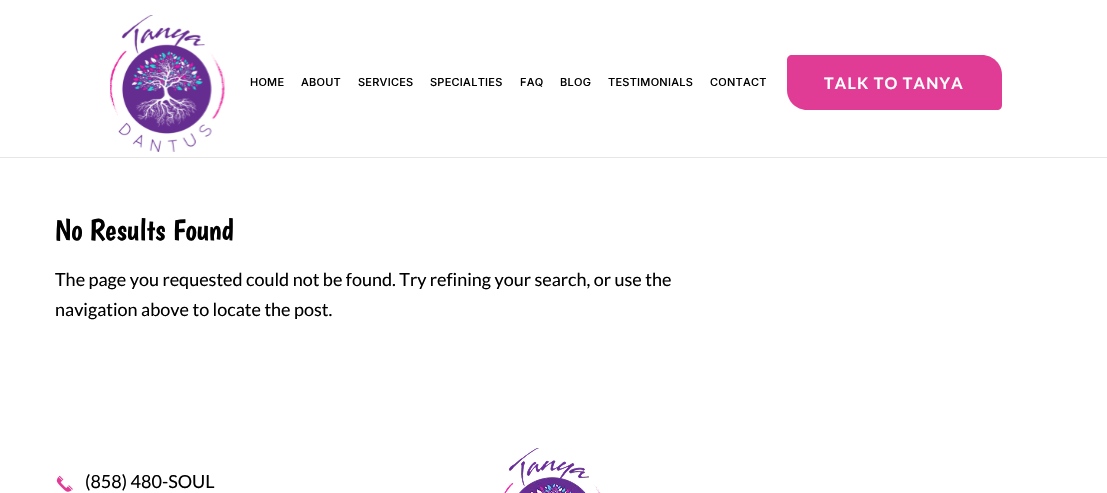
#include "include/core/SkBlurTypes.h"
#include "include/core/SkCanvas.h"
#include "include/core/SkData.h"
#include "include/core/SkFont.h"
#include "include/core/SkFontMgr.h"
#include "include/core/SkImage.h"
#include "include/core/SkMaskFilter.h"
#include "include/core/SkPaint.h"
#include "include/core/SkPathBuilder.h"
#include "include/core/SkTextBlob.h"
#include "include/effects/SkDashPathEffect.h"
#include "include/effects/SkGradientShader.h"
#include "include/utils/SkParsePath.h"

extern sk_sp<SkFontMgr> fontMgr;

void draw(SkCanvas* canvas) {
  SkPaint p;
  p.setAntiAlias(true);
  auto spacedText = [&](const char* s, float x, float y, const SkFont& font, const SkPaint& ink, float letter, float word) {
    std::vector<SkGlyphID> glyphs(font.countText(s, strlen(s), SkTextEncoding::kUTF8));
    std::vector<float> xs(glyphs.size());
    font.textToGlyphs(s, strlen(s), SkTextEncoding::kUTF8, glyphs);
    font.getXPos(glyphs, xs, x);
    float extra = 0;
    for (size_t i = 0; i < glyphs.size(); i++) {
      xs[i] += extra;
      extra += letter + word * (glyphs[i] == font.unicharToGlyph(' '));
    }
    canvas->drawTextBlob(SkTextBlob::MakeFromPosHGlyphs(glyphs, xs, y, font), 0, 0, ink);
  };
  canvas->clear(SK_ColorWHITE);
  p.setColor(SkColorSetRGB(230, 230, 230));
  canvas->drawRect(SkRect::MakeLTRB(0, 157, 1107, 158), p);
  canvas->drawImageRect(SkImages::DeferredFromEncodedData(SkData::MakeFromFileName("images/1.png")), SkRect::MakeLTRB(110, 15, 225, 152), SkSamplingOptions());
  p.setColor(SkColorSetRGB(224, 60, 149));
  canvas->drawPath(SkPathBuilder().moveTo(792, 55).lineTo(982, 55).cubicTo(993, 55, 1002, 64, 1002, 75).lineTo(1002, 105).cubicTo(1002, 108, 1000, 110, 997, 110).lineTo(807, 110).cubicTo(796, 110, 787, 101, 787, 90).lineTo(787, 60).cubicTo(787, 57, 789, 55, 792, 55).close().detach(), p);
  canvas->drawImageRect(SkImages::DeferredFromEncodedData(SkData::MakeFromFileName("images/2.png")), SkRect::MakeLTRB(56, 475, 73, 492), SkSamplingOptions());
  canvas->drawImageRect(SkImages::DeferredFromEncodedData(SkData::MakeFromFileName("images/3.png")), SkRect::MakeLTRB(504, 448, 601, 493), SkSamplingOptions());
  SkFont font1(fontMgr->matchFamilyStyle("Inter", SkFontStyle(500, SkFontStyle::kNormal_Width, SkFontStyle::kUpright_Slant)), 11);
  font1.setSubpixel(true);
  p.setColor(SK_ColorBLACK);
  spacedText("HOME", 250, 86, font1, p, 0.25f, 0);
  spacedText("ABOUT", 301, 86, font1, p, 0.25f, 0);
  spacedText("SERVICES", 358, 86, font1, p, 0.25f, 0);
  spacedText("SPECIALTIES", 430, 86, font1, p, 0.25f, 0);
  spacedText("FAQ", 520, 86, font1, p, 0.25f, 0);
  spacedText("BLOG", 560, 86, font1, p, 0.25f, 0);
  spacedText("TESTIMONIALS", 608, 86, font1, p, 0.25f, 0);
  spacedText("CONTACT", 710, 86, font1, p, 0.25f, 0);
  SkFont font2(fontMgr->matchFamilyStyle("Lato", SkFontStyle::Bold()), 16);
  font2.setSubpixel(true);
  p.setColor(SK_ColorWHITE);
  spacedText("TALK TO TANYA", 824, 89, font2, p, 1.25f, 0);
  SkFont font3(fontMgr->matchFamilyStyle("Boogaloo", SkFontStyle::Normal()), 30);
  font3.setSubpixel(true);
  p.setColor(SK_ColorBLACK);
  canvas->drawString("No Results Found", 55, 240, font3, p);
  SkFont font4(fontMgr->matchFamilyStyle("Lato", SkFontStyle::Normal()), 18);
  font4.setSubpixel(true);
  canvas->drawString("The page you requested could not be found. Try refining your search, or use the", 55, 286, font4, p);
  canvas->drawString("navigation above to locate the post.", 55, 316, font4, p);
  canvas->drawString("(858) 480-SOUL", 85, 488, font4, p);
}
